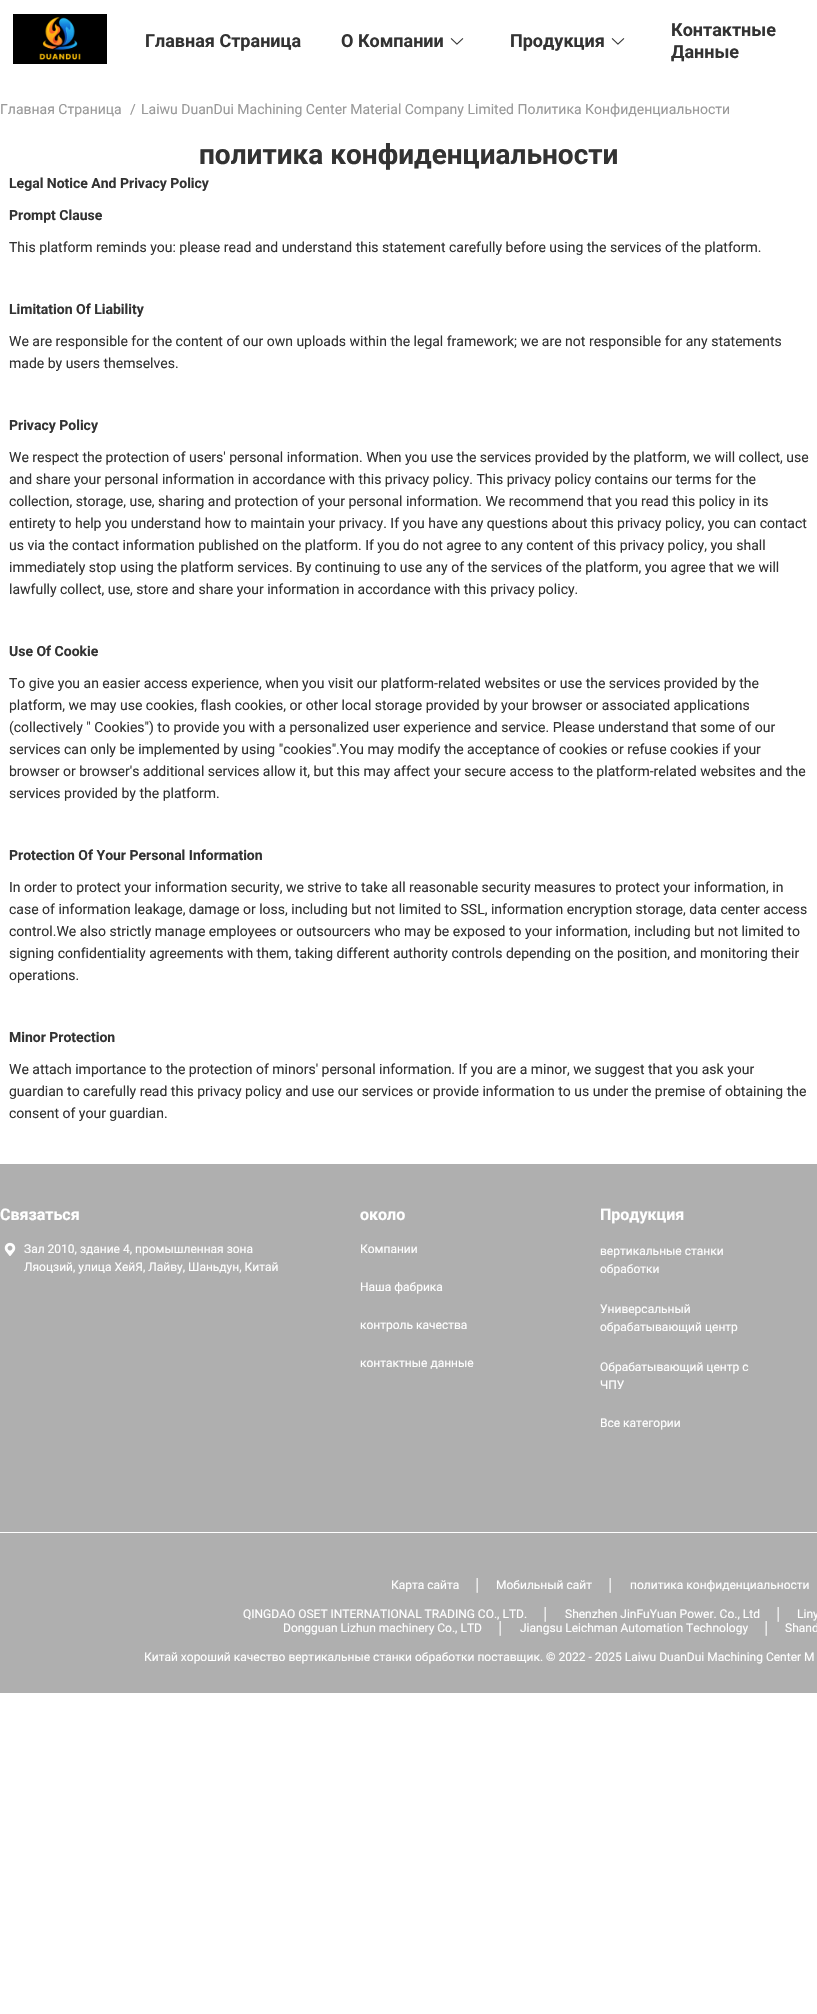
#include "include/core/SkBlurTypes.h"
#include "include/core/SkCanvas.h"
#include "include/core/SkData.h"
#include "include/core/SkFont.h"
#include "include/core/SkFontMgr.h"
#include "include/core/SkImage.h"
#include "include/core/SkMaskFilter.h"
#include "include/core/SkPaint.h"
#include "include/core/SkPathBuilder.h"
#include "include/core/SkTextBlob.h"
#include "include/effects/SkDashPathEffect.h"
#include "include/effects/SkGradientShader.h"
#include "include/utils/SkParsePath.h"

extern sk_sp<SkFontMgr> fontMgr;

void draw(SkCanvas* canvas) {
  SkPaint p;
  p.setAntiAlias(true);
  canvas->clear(SK_ColorWHITE);
  canvas->drawImageRect(SkImages::DeferredFromEncodedData(SkData::MakeFromFileName("images/1.png")), SkRect::MakeLTRB(13, 14, 107, 64), SkSamplingOptions());
  canvas->drawImageRect(SkImages::DeferredFromEncodedData(SkData::MakeFromFileName("images/2.png")), SkRect::MakeLTRB(450, 38, 464, 45), SkSamplingOptions());
  canvas->drawImageRect(SkImages::DeferredFromEncodedData(SkData::MakeFromFileName("images/2.png")), SkRect::MakeLTRB(611, 38, 625, 45), SkSamplingOptions());
  p.setColor(SkColorSetRGB(175, 175, 175));
  canvas->drawRect(SkRect::MakeLTRB(0, 1164, 817, 1693), p);
  canvas->drawImageRect(SkImages::DeferredFromEncodedData(SkData::MakeFromFileName("images/3.png")), SkRect::MakeLTRB(4, 1242, 16, 1256), SkSamplingOptions());
  p.setColor(SK_ColorWHITE);
  canvas->drawRect(SkRect::MakeLTRB(0, 1532, 817, 1533), p);
  SkFont font1(fontMgr->matchFamilyStyle("Roboto", SkFontStyle::Bold()), 18);
  font1.setSubpixel(true);
  p.setColor(SkColorSetRGB(51, 51, 51));
  canvas->drawString("Главная Страница", 145, 47, font1, p);
  canvas->drawString("О Компании", 341, 47, font1, p);
  canvas->drawString("Продукция", 510, 47, font1, p);
  canvas->drawString("Контактные", 671, 36, font1, p);
  canvas->save();
  canvas->clipRect(SkRect::MakeLTRB(671, 0, 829, 80));
  canvas->drawString("Данные", 671, 58, font1, p);
  canvas->restore();
  SkFont font2(fontMgr->matchFamilyStyle("Roboto", SkFontStyle::Normal()), 14);
  font2.setSubpixel(true);
  p.setColor(SkColorSetRGB(153, 153, 153));
  canvas->drawString("Главная Страница", 0, 114, font2, p);
  canvas->drawString("/", 130, 114, font2, p);
  canvas->drawString("Laiwu DuanDui Machining Center Material Company Limited Политика Конфиденциальности", 141, 114, font2, p);
  SkFont font3(fontMgr->matchFamilyStyle("Roboto", SkFontStyle::Bold()), 28);
  font3.setSubpixel(true);
  p.setColor(SkColorSetRGB(51, 51, 51));
  canvas->drawString("политика конфиденциальности", 199, 164, font3, p);
  SkFont font4(fontMgr->matchFamilyStyle("Roboto", SkFontStyle::Bold()), 14);
  font4.setSubpixel(true);
  canvas->drawString("Legal Notice And Privacy Policy", 9, 188, font4, p);
  canvas->drawString("Prompt Clause", 9, 220, font4, p);
  canvas->drawString("This platform reminds you: please read and understand this statement carefully before using the services of the platform.", 9, 252, font2, p);
  canvas->drawString("Limitation Of Liability", 9, 314, font4, p);
  canvas->drawString("We are responsible for the content of our own uploads within the legal framework; we are not responsible for any statements", 9, 346, font2, p);
  canvas->drawString("made by users themselves.", 9, 368, font2, p);
  canvas->drawString("Privacy Policy", 9, 430, font4, p);
  canvas->drawString("We respect the protection of users' personal information. When you use the services provided by the platform, we will collect, use", 9, 462, font2, p);
  canvas->drawString("and share your personal information in accordance with this privacy policy. This privacy policy contains our terms for the", 9, 484, font2, p);
  canvas->drawString("collection, storage, use, sharing and protection of your personal information. We recommend that you read this policy in its", 9, 506, font2, p);
  canvas->drawString("entirety to help you understand how to maintain your privacy. If you have any questions about this privacy policy, you can contact", 9, 528, font2, p);
  canvas->drawString("us via the contact information published on the platform. If you do not agree to any content of this privacy policy, you shall", 9, 550, font2, p);
  canvas->drawString("immediately stop using the platform services. By continuing to use any of the services of the platform, you agree that we will", 9, 572, font2, p);
  canvas->drawString("lawfully collect, use, store and share your information in accordance with this privacy policy.", 9, 594, font2, p);
  canvas->drawString("Use Of Cookie", 9, 656, font4, p);
  canvas->drawString("To give you an easier access experience, when you visit our platform-related websites or use the services provided by the", 9, 688, font2, p);
  canvas->drawString("platform, we may use cookies, flash cookies, or other local storage provided by your browser or associated applications", 9, 710, font2, p);
  canvas->drawString("(collectively \" Cookies\") to provide you with a personalized user experience and service. Please understand that some of our", 9, 732, font2, p);
  canvas->drawString("services can only be implemented by using \"cookies\".You may modify the acceptance of cookies or refuse cookies if your", 9, 754, font2, p);
  canvas->drawString("browser or browser's additional services allow it, but this may affect your secure access to the platform-related websites and the", 9, 776, font2, p);
  canvas->drawString("services provided by the platform.", 9, 798, font2, p);
  canvas->drawString("Protection Of Your Personal Information", 9, 860, font4, p);
  canvas->drawString("In order to protect your information security, we strive to take all reasonable security measures to protect your information, in", 9, 892, font2, p);
  canvas->drawString("case of information leakage, damage or loss, including but not limited to SSL, information encryption storage, data center access", 9, 914, font2, p);
  canvas->drawString("control.We also strictly manage employees or outsourcers who may be exposed to your information, including but not limited to", 9, 936, font2, p);
  canvas->drawString("signing confidentiality agreements with them, taking different authority controls depending on the position, and monitoring their", 9, 958, font2, p);
  canvas->drawString("operations.", 9, 980, font2, p);
  canvas->drawString("Minor Protection", 9, 1042, font4, p);
  canvas->drawString("We attach importance to the protection of minors' personal information. If you are a minor, we suggest that you ask your", 9, 1074, font2, p);
  canvas->drawString("guardian to carefully read this privacy policy and use our services or provide information to us under the premise of obtaining the", 9, 1096, font2, p);
  canvas->drawString("consent of your guardian.", 9, 1118, font2, p);
  SkFont font5(fontMgr->matchFamilyStyle("Roboto", SkFontStyle::Bold()), 16);
  font5.setSubpixel(true);
  p.setColor(SK_ColorWHITE);
  canvas->drawString("Связаться", 0, 1220, font5, p);
  SkFont font6(fontMgr->matchFamilyStyle("Roboto", SkFontStyle::Normal()), 12);
  font6.setSubpixel(true);
  canvas->drawString("Зал 2010, здание 4, промышленная зона", 24, 1253, font6, p);
  canvas->drawString("Ляоцзий, улица ХейЯ, Лайву, Шаньдун, Китай", 24, 1271, font6, p);
  canvas->drawString("около", 360, 1220, font5, p);
  canvas->drawString("Компании", 360, 1253, font6, p);
  canvas->drawString("Наша фабрика", 360, 1291, font6, p);
  canvas->drawString("контроль качества", 360, 1329, font6, p);
  canvas->drawString("контактные данные", 360, 1367, font6, p);
  canvas->drawString("Продукция", 600, 1220, font5, p);
  canvas->drawString("вертикальные станки", 600, 1255, font6, p);
  canvas->drawString("обработки", 600, 1273, font6, p);
  canvas->drawString("Универсальный", 600, 1313, font6, p);
  canvas->drawString("обрабатывающий центр", 600, 1331, font6, p);
  canvas->drawString("Обрабатывающий центр с", 600, 1371, font6, p);
  canvas->drawString("ЧПУ", 600, 1389, font6, p);
  canvas->drawString("Все категории", 600, 1427, font6, p);
  canvas->drawString("Карта сайта", 391, 1589, font6, p);
  SkFont font7(fontMgr->matchFamilyStyle("Liberation Sans", SkFontStyle::Normal()), 12);
  font7.setSubpixel(true);
  canvas->drawString("│", 474, 1589, font7, p);
  canvas->drawString("Мобильный сайт", 496, 1589, font6, p);
  canvas->drawString("│", 607, 1589, font7, p);
  canvas->drawString("политика конфиденциальности", 630, 1589, font6, p);
  canvas->drawString("QINGDAO OSET INTERNATIONAL TRADING CO., LTD.", 243, 1618, font6, p);
  canvas->drawString("│", 542, 1618, font7, p);
  canvas->drawString("Shenzhen JinFuYuan Power. Co., Ltd", 565, 1618, font6, p);
  canvas->drawString("│", 775, 1618, font7, p);
  canvas->drawString("Liny", 797, 1618, font6, p);
  canvas->drawString("Dongguan Lizhun machinery Co., LTD", 283, 1632, font6, p);
  canvas->drawString("│", 497, 1632, font7, p);
  canvas->drawString("Jiangsu Leichman Automation Technology", 520, 1632, font6, p);
  canvas->drawString("│", 763, 1632, font7, p);
  canvas->drawString("Shand", 785, 1632, font6, p);
  canvas->drawString("Китай хороший качество вертикальные станки обработки поставщик. © 2022 - 2025 Laiwu DuanDui Machining Center M", 144, 1661, font6, p);
}
